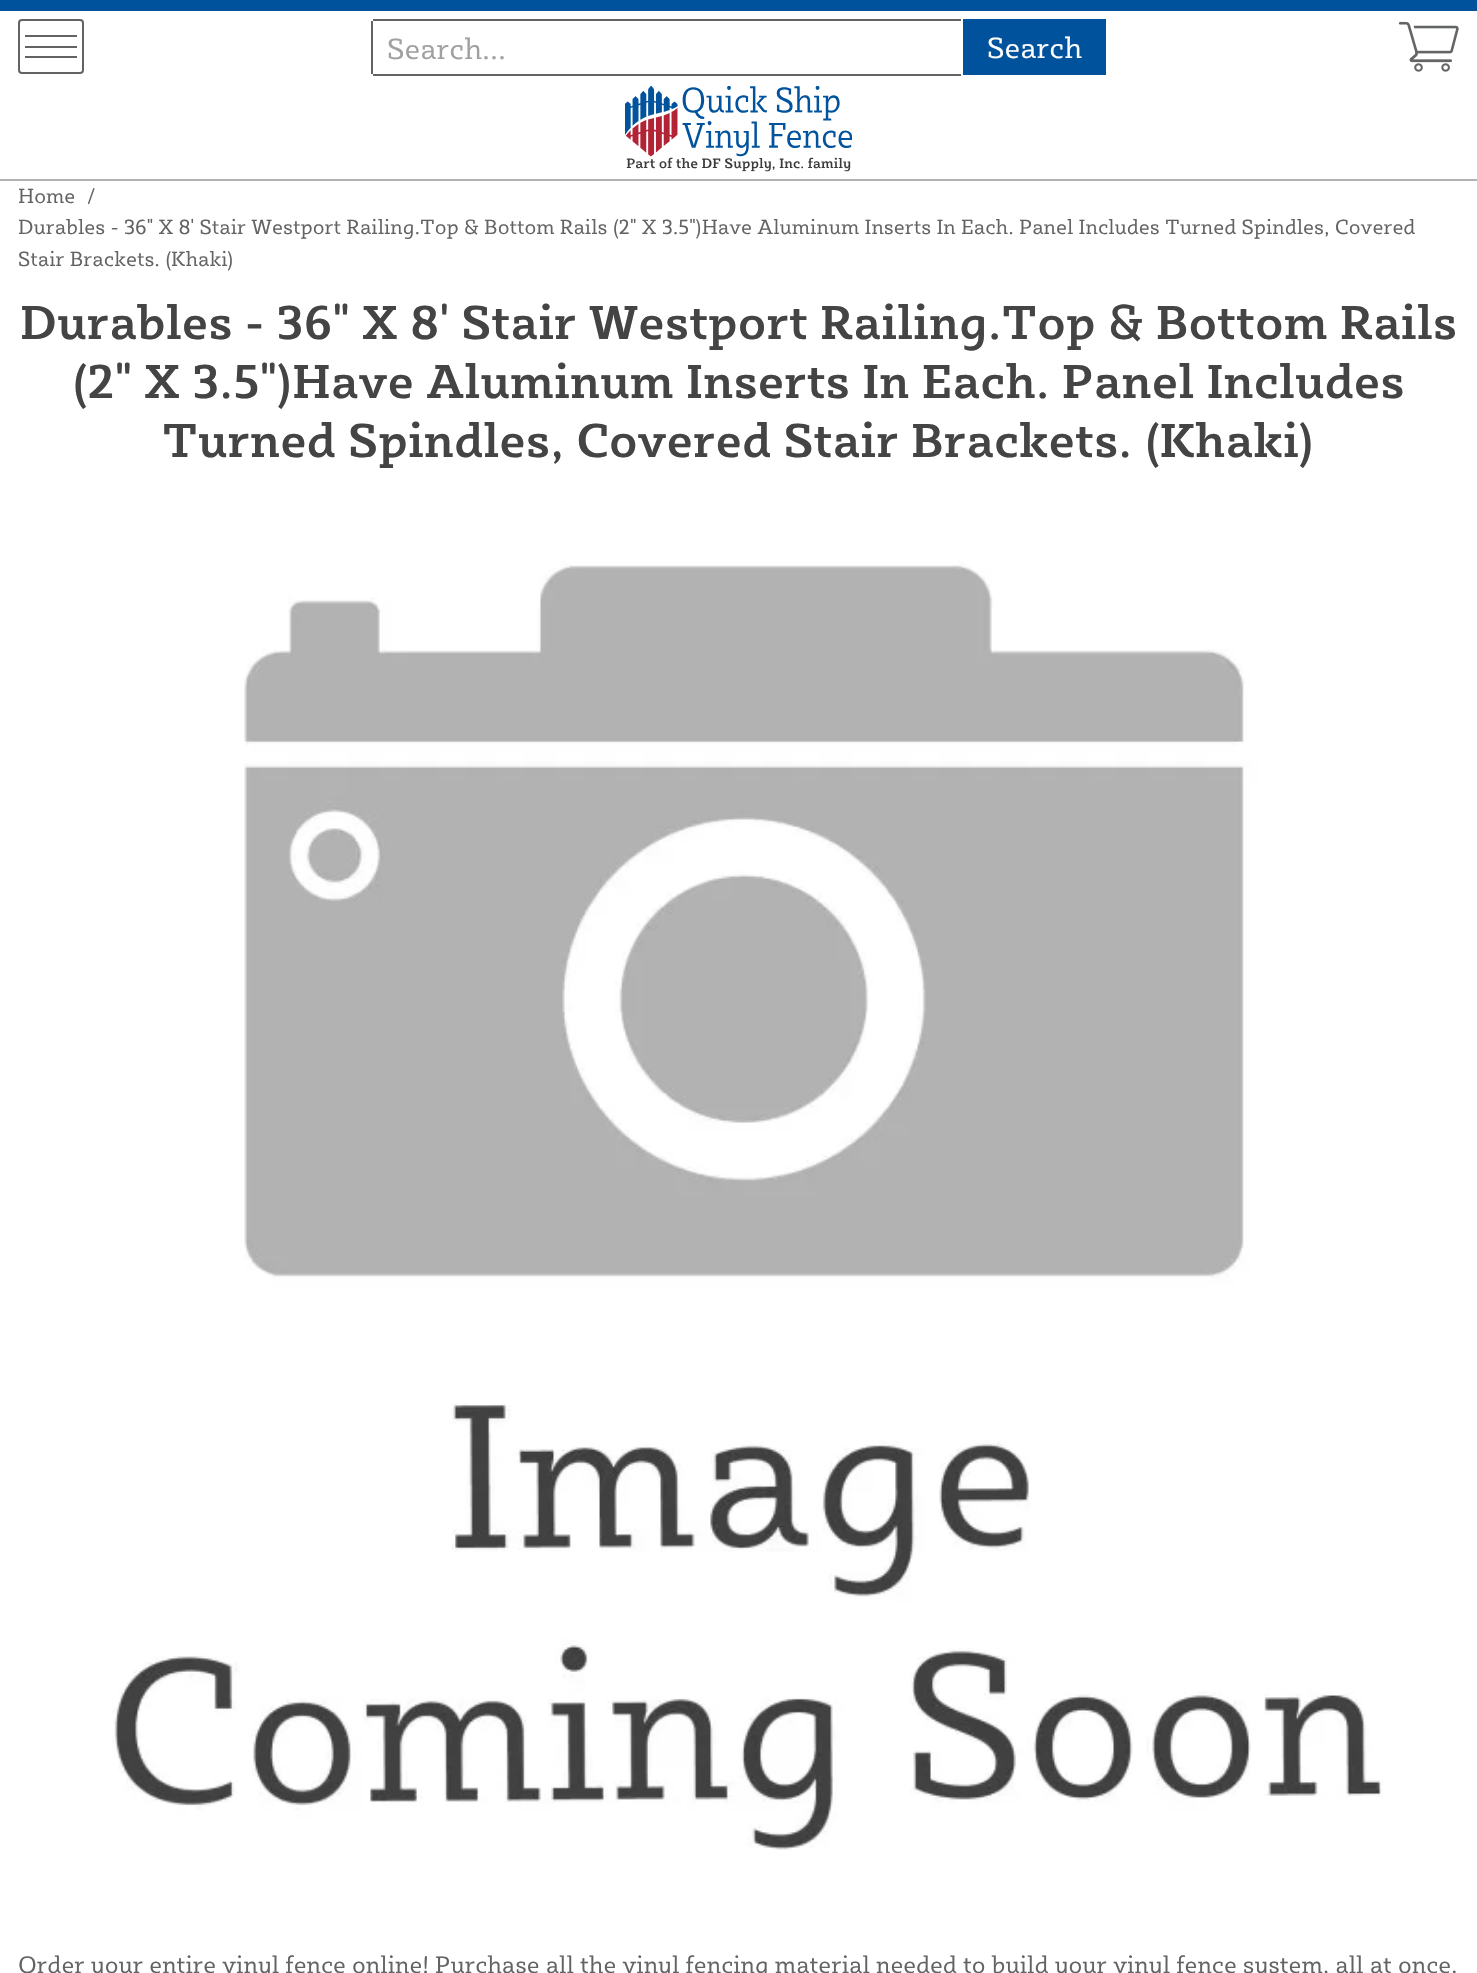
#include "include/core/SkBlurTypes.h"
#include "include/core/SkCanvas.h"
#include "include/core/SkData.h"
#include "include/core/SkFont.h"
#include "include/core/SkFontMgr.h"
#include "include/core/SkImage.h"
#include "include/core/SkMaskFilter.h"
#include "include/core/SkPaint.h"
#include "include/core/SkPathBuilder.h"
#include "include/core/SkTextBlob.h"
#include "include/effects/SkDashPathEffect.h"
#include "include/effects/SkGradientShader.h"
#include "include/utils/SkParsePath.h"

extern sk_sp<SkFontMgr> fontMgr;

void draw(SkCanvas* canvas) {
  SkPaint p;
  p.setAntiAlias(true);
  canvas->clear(SK_ColorWHITE);
  p.setColor(SkColorSetRGB(0, 82, 156));
  canvas->drawRect(SkRect::MakeLTRB(0, 0, 1477, 11), p);
  p.setColor(SkColorSetRGB(177, 177, 177));
  canvas->drawRect(SkRect::MakeLTRB(0, 179, 1477, 181), p);
  p.setStyle(SkPaint::kStroke_Style);
  p.setStrokeWidth(2);
  p.setColor(SkColorSetRGB(99, 99, 99));
  canvas->drawRoundRect(SkRect::MakeLTRB(19, 20, 83, 73), 3, 3, p);
  p.setStyle(SkPaint::kFill_Style);
  canvas->drawRect(SkRect::MakeLTRB(25, 35, 77, 37), p);
  canvas->drawRect(SkRect::MakeLTRB(25, 46, 77, 48), p);
  canvas->drawRect(SkRect::MakeLTRB(25, 56, 77, 58), p);
  canvas->drawRect(SkRect::MakeLTRB(373, 19, 961, 21), p);
  canvas->drawRect(SkRect::MakeLTRB(373, 74, 961, 76), p);
  canvas->drawRect(SkRect::MakeLTRB(371, 21, 373, 74), p);
  {
    const SkColor colors[] = {SkColorSetRGB(0, 82, 156), SkColorSetRGB(0, 82, 156), SkColorSetRGB(0, 124, 232), SkColorSetRGB(0, 82, 156), SkColorSetRGB(0, 82, 156)};
    const float stops[] = {0, 0.13f, 0.2f, 0.27f, 1};
    const SkPoint ends[] = {{705, 154}, {1076, -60}};
    p.setShader(SkGradientShader::MakeLinear(ends, colors, stops, 5, SkTileMode::kClamp));
    p.setAlpha(255);
  }
  canvas->drawRect(SkRect::MakeLTRB(963, 19, 1106, 75), p);
  canvas->drawImageRect(SkImages::DeferredFromEncodedData(SkData::MakeFromFileName("images/1.png")), SkRect::MakeLTRB(1398, 21, 1459, 72), SkSamplingOptions());
  canvas->drawImageRect(SkImages::DeferredFromEncodedData(SkData::MakeFromFileName("images/2.png")), SkRect::MakeLTRB(625, 86, 852, 172), SkSamplingOptions());
  canvas->drawImageRect(SkImages::DeferredFromEncodedData(SkData::MakeFromFileName("images/3.png")), SkRect::MakeLTRB(112, 561, 1383, 1850), SkSamplingOptions());
  SkFont font1(fontMgr->matchFamilyStyle("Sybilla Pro", SkFontStyle::Normal()), 30);
  font1.setSubpixel(true);
  p.setShader(nullptr);
  p.setColor(SkColorSetRGB(160, 160, 160));
  canvas->drawString("Search...", 387, 59, font1, p);
  p.setColor(SK_ColorWHITE);
  canvas->drawString("Search", 987, 58, font1, p);
  SkFont font2(fontMgr->matchFamilyStyle("Sybilla Pro", SkFontStyle::Normal()), 21);
  font2.setSubpixel(true);
  p.setColor(SkColorSetRGB(99, 99, 99));
  canvas->drawString("Home", 18, 203, font2, p);
  canvas->drawString("/", 87, 203, font2, p);
  canvas->drawString("Durables - 36\" X 8' Stair Westport Railing.Top & Bottom Rails (2\" X 3.5\")Have Aluminum Inserts In Each. Panel Includes Turned Spindles, Covered", 18, 234, font2, p);
  canvas->drawString("Stair Brackets. (Khaki)", 18, 266, font2, p);
  SkFont font3(fontMgr->matchFamilyStyle("Sybilla Pro", SkFontStyle(500, SkFontStyle::kNormal_Width, SkFontStyle::kUpright_Slant)), 49);
  font3.setSubpixel(true);
  p.setColor(SkColorSetRGB(68, 68, 68));
  canvas->drawString("Durables - 36\" X 8' Stair Westport Railing.Top & Bottom Rails", 20, 339, font3, p);
  canvas->drawString("(2\" X 3.5\")Have Aluminum Inserts In Each. Panel Includes", 72, 398, font3, p);
  canvas->drawString("Turned Spindles, Covered Stair Brackets. (Khaki)", 162, 457, font3, p);
  SkFont font4(fontMgr->matchFamilyStyle("Sybilla Pro", SkFontStyle::Normal()), 24.5f);
  font4.setSubpixel(true);
  p.setColor(SkColorSetRGB(99, 99, 99));
  canvas->drawString("Order your entire vinyl fence online! Purchase all the vinyl fencing material needed to build your vinyl fence system, all at once.", 18, 1973, font4, p);
}
